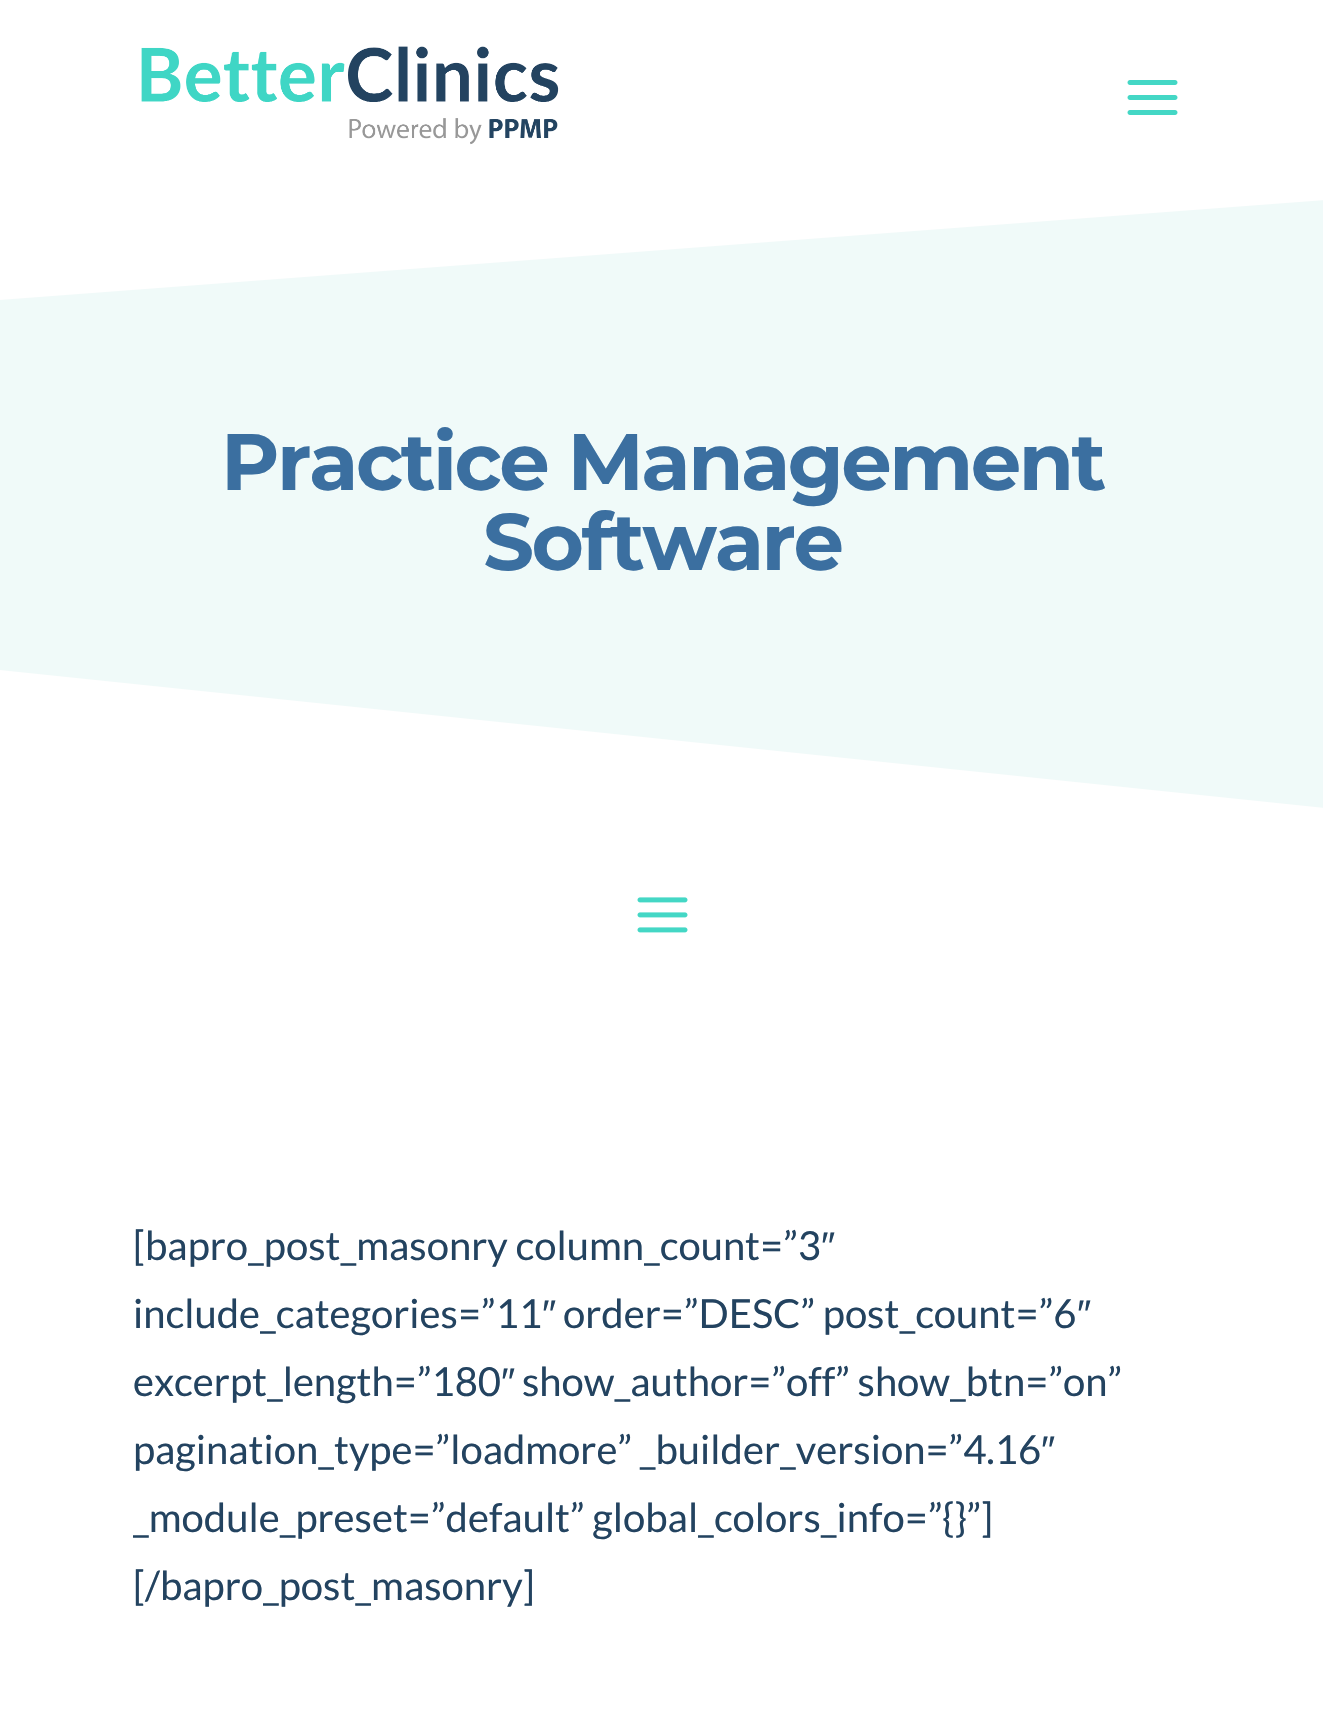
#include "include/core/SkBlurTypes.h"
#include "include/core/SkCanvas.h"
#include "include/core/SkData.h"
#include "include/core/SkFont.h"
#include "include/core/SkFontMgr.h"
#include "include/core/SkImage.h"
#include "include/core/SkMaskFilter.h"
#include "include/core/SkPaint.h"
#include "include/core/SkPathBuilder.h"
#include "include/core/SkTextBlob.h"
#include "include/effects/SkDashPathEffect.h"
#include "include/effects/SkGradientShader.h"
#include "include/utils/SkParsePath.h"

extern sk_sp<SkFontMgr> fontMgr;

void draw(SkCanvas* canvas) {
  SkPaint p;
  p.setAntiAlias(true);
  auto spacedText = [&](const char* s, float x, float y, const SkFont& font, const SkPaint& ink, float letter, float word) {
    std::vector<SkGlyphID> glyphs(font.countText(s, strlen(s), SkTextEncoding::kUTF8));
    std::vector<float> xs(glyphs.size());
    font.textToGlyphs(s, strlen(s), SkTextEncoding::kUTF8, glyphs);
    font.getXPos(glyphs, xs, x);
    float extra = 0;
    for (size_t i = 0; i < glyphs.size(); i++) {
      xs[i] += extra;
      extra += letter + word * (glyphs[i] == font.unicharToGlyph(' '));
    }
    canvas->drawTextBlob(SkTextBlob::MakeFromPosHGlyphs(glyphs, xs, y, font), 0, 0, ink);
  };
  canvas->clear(SK_ColorWHITE);
  canvas->drawImageRect(SkImages::DeferredFromEncodedData(SkData::MakeFromFileName("images/1.png")), SkRect::MakeLTRB(141, 46, 559, 145), SkSamplingOptions());
  canvas->drawImageRect(SkImages::DeferredFromEncodedData(SkData::MakeFromFileName("images/2.png")), SkRect::MakeLTRB(1127, 80, 1178, 115), SkSamplingOptions());
  p.setColor(SkColorSetRGB(240, 250, 249));
  canvas->drawRect(SkRect::MakeLTRB(0, 200, 1323, 808), p);
  p.setColor(SK_ColorWHITE);
  canvas->drawPath(SkPathBuilder().moveTo(0, 300).lineTo(0, 200).lineTo(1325, 200).close().detach(), p);
  canvas->drawPath(SkPathBuilder().moveTo(0, 670).lineTo(0, 808).lineTo(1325, 808).close().detach(), p);
  canvas->drawImageRect(SkImages::DeferredFromEncodedData(SkData::MakeFromFileName("images/3.png")), SkRect::MakeLTRB(637, 897, 688, 933), SkSamplingOptions());
  SkFont font1(fontMgr->matchFamilyStyle("Montserrat", SkFontStyle(100, SkFontStyle::kNormal_Width, SkFontStyle::kUpright_Slant)), 80);
  font1.setSubpixel(true);
  p.setColor(SkColorSetRGB(59, 111, 160));
  spacedText("Practice Management", 221, 490, font1, p, -2.5f, 0);
  spacedText("Software", 483, 570, font1, p, -2.5f, 0);
  SkFont font2(fontMgr->matchFamilyStyle("Lato", SkFontStyle::Normal()), 40);
  font2.setSubpixel(true);
  p.setColor(SkColorSetRGB(35, 67, 96));
  canvas->drawString("[bapro_post_masonry column_count=”3", 133, 1260, font2, p);
  SkFont font3(fontMgr->matchFamilyStyle("Liberation Sans", SkFontStyle::Normal()), 40);
  font3.setSubpixel(true);
  canvas->drawString("″", 821, 1260, font3, p);
  canvas->drawString("include_categories=”11", 133, 1328, font2, p);
  canvas->drawString("″", 542, 1328, font3, p);
  canvas->drawString("order=”DESC” post_count=”6", 563, 1328, font2, p);
  canvas->drawString("″", 1077, 1328, font3, p);
  canvas->drawString("excerpt_length=”180", 133, 1396, font2, p);
  canvas->drawString("″", 501, 1396, font3, p);
  canvas->drawString("show_author=”off” show_btn=”on”", 522, 1396, font2, p);
  canvas->drawString("pagination_type=”loadmore” _builder_version=”4.16", 133, 1464, font2, p);
  canvas->drawString("″", 1041, 1464, font3, p);
  canvas->drawString("_module_preset=”default” global_colors_info=”{}”]", 133, 1532, font2, p);
  canvas->drawString("[/bapro_post_masonry]", 133, 1600, font2, p);
}
